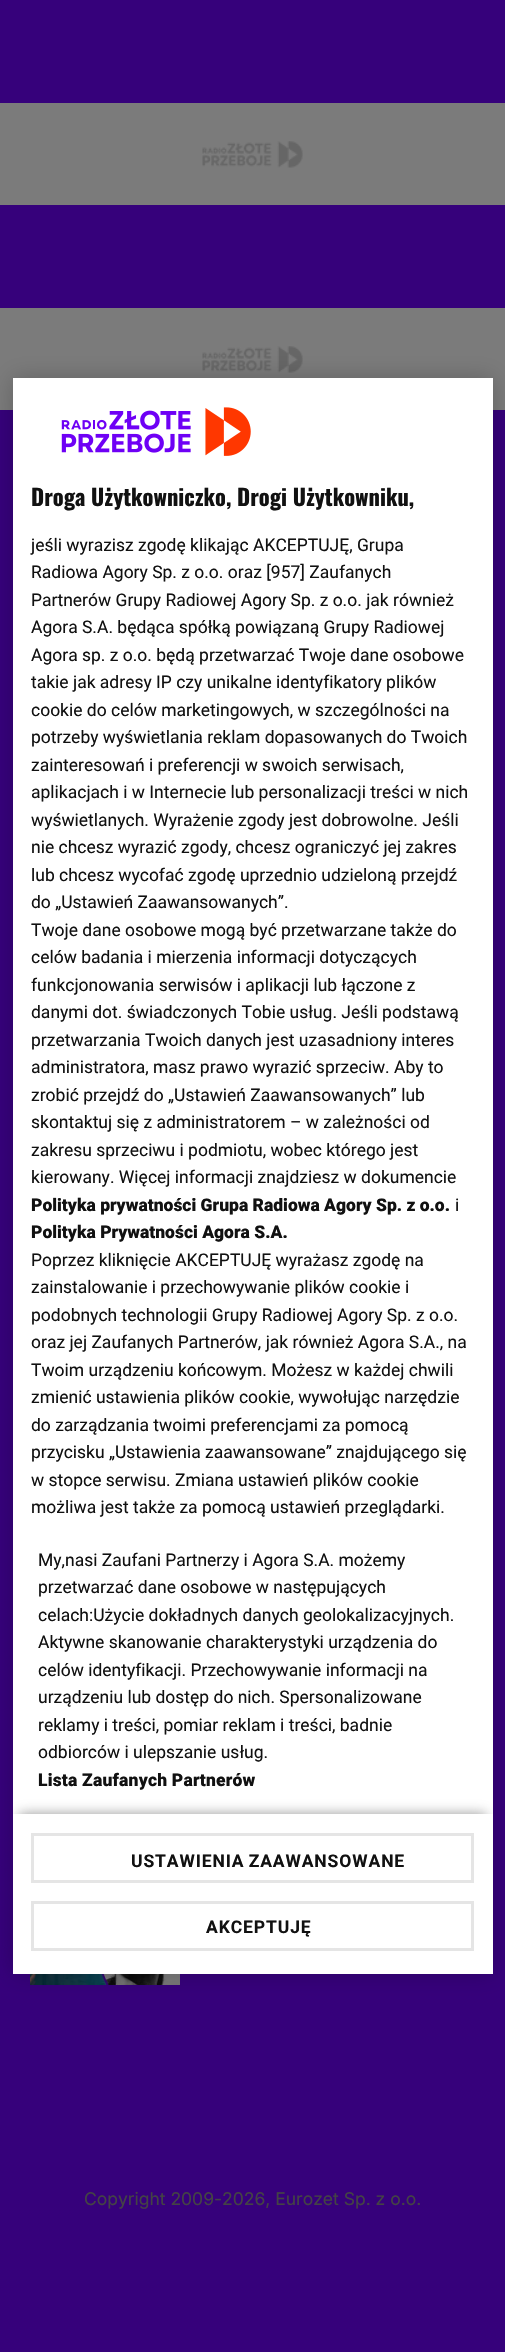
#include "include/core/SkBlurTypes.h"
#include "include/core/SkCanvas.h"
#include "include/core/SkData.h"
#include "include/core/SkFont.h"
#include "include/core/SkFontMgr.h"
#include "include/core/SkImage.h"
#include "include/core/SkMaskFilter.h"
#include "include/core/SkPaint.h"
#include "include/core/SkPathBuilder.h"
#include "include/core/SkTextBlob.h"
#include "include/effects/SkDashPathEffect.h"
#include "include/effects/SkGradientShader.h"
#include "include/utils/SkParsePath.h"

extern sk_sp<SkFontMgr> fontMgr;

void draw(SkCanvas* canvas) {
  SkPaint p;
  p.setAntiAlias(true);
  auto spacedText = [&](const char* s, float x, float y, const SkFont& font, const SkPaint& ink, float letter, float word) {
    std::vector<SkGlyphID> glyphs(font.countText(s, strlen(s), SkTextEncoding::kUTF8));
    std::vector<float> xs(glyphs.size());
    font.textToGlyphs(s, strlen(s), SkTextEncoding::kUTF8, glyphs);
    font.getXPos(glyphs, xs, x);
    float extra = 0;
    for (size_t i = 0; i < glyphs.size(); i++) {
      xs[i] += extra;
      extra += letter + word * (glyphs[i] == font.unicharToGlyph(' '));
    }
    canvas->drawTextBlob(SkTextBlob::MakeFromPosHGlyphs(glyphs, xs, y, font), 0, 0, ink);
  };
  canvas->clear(SkColorSetRGB(54, 1, 123));
  p.setColor(SkColorSetRGB(123, 123, 123));
  canvas->drawRect(SkRect::MakeLTRB(0, 103, 505, 205), p);
  canvas->drawImageRect(SkImages::DeferredFromEncodedData(SkData::MakeFromFileName("images/1.png")), SkRect::MakeLTRB(202, 141, 303, 168), SkSamplingOptions());
  canvas->drawRect(SkRect::MakeLTRB(0, 308, 505, 410), p);
  canvas->drawImageRect(SkImages::DeferredFromEncodedData(SkData::MakeFromFileName("images/1.png")), SkRect::MakeLTRB(202, 346, 303, 373), SkSamplingOptions());
  canvas->drawImageRect(SkImages::DeferredFromEncodedData(SkData::MakeFromFileName("images/3.png")), SkRect::MakeLTRB(30, 1974, 180, 1985), SkSamplingOptions());
  p.setColor(SkColorSetARGB(51, 0, 0, 0));
  p.setMaskFilter(SkMaskFilter::MakeBlur(kNormal_SkBlurStyle, 11));
  canvas->drawRect(SkRect::MakeLTRB(13, 378, 493, 1974), p);
  p.setMaskFilter(nullptr);
  p.setColor(SK_ColorWHITE);
  canvas->drawRect(SkRect::MakeLTRB(13, 378, 493, 1974), p);
  canvas->drawImageRect(SkImages::DeferredFromEncodedData(SkData::MakeFromFileName("images/2.png")), SkRect::MakeLTRB(61, 407, 251, 456), SkSamplingOptions());
  canvas->save();
  canvas->clipRect(SkRect::MakeLTRB(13, 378, 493, 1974));
  canvas->clipPath(SkPathBuilder(SkPathFillType::kEvenOdd).moveTo(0, 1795).lineTo(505, 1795).lineTo(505, 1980).lineTo(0, 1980).close().moveTo(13, 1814).lineTo(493, 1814).lineTo(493, 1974).lineTo(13, 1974).close().detach(), true);
  p.setColor(SkColorSetARGB(191, 115, 115, 115));
  p.setMaskFilter(SkMaskFilter::MakeBlur(kNormal_SkBlurStyle, 6));
  canvas->drawRect(SkRect::MakeLTRB(19, 1814, 486, 1961), p);
  p.setMaskFilter(nullptr);
  canvas->restore();
  p.setStyle(SkPaint::kStroke_Style);
  p.setStrokeWidth(3);
  p.setColor(SkColorSetRGB(229, 229, 229));
  canvas->drawRect(SkRect::MakeLTRB(32.5f, 1834.5f, 472.5f, 1881.5f), p);
  canvas->drawRect(SkRect::MakeLTRB(32.5f, 1902.5f, 472.5f, 1949.5f), p);
  SkFont font1(fontMgr->matchFamilyStyle("Oswald", SkFontStyle::Bold()), 22.5f);
  font1.setSubpixel(true);
  p.setStyle(SkPaint::kFill_Style);
  p.setColor(SkColorSetRGB(17, 17, 17));
  canvas->drawString("Droga Użytkowniczko, Drogi Użytkowniku,", 31, 506, font1, p);
  SkFont font2(fontMgr->matchFamilyStyle("Roboto", SkFontStyle::Normal()), 17.5f);
  font2.setSubpixel(true);
  canvas->drawString("jeśli wyrazisz zgodę klikając AKCEPTUJĘ, Grupa", 31, 551, font2, p);
  canvas->drawString("Radiowa Agory Sp. z o.o. oraz [957] Zaufanych", 31, 578, font2, p);
  canvas->drawString("Partnerów Grupy Radiowej Agory Sp. z o.o. jak również", 31, 606, font2, p);
  canvas->drawString("Agora S.A. będąca spółką powiązaną Grupy Radiowej", 31, 633, font2, p);
  canvas->drawString("Agora sp. z o.o. będą przetwarzać Twoje dane osobowe", 31, 661, font2, p);
  canvas->drawString("takie jak adresy IP czy unikalne identyfikatory plików", 31, 688, font2, p);
  canvas->drawString("cookie do celów marketingowych, w szczególności na", 31, 716, font2, p);
  canvas->drawString("potrzeby wyświetlania reklam dopasowanych do Twoich", 31, 743, font2, p);
  canvas->drawString("zainteresowań i preferencji w swoich serwisach,", 31, 771, font2, p);
  canvas->drawString("aplikacjach i w Internecie lub personalizacji treści w nich", 31, 798, font2, p);
  canvas->drawString("wyświetlanych. Wyrażenie zgody jest dobrowolne. Jeśli", 31, 826, font2, p);
  canvas->drawString("nie chcesz wyrazić zgody, chcesz ograniczyć jej zakres", 31, 853, font2, p);
  canvas->drawString("lub chcesz wycofać zgodę uprzednio udzieloną przejdź", 31, 881, font2, p);
  canvas->drawString("do „Ustawień Zaawansowanych”.", 31, 908, font2, p);
  canvas->drawString("Twoje dane osobowe mogą być przetwarzane także do", 31, 936, font2, p);
  canvas->drawString("celów badania i mierzenia informacji dotyczących", 31, 963, font2, p);
  canvas->drawString("funkcjonowania serwisów i aplikacji lub łączone z", 31, 991, font2, p);
  canvas->drawString("danymi dot. świadczonych Tobie usług. Jeśli podstawą", 31, 1018, font2, p);
  canvas->drawString("przetwarzania Twoich danych jest uzasadniony interes", 31, 1046, font2, p);
  canvas->drawString("administratora, masz prawo wyrazić sprzeciw. Aby to", 31, 1073, font2, p);
  canvas->drawString("zrobić przejdź do „Ustawień Zaawansowanych” lub", 31, 1101, font2, p);
  canvas->drawString("skontaktuj się z administratorem – w zależności od", 31, 1128, font2, p);
  canvas->drawString("zakresu sprzeciwu i podmiotu, wobec którego jest", 31, 1156, font2, p);
  canvas->drawString("kierowany. Więcej informacji znajdziesz w dokumencie", 31, 1183, font2, p);
  SkFont font3(fontMgr->matchFamilyStyle("Roboto", SkFontStyle(900, SkFontStyle::kNormal_Width, SkFontStyle::kUpright_Slant)), 17.5f);
  font3.setSubpixel(true);
  canvas->drawString("Polityka prywatności Grupa Radiowa Agory Sp. z o.o.", 31, 1211, font3, p);
  canvas->drawString("i", 455, 1211, font2, p);
  canvas->drawString("Polityka Prywatności Agora S.A.", 31, 1238, font3, p);
  canvas->drawString("Poprzez kliknięcie AKCEPTUJĘ wyrażasz zgodę na", 31, 1266, font2, p);
  canvas->drawString("zainstalowanie i przechowywanie plików cookie i", 31, 1293, font2, p);
  canvas->drawString("podobnych technologii Grupy Radiowej Agory Sp. z o.o.", 31, 1321, font2, p);
  canvas->drawString("oraz jej Zaufanych Partnerów, jak również Agora S.A., na", 31, 1348, font2, p);
  canvas->drawString("Twoim urządzeniu końcowym. Możesz w każdej chwili", 31, 1376, font2, p);
  canvas->drawString("zmienić ustawienia plików cookie, wywołując narzędzie", 31, 1403, font2, p);
  canvas->drawString("do zarządzania twoimi preferencjami za pomocą", 31, 1431, font2, p);
  canvas->drawString("przycisku „Ustawienia zaawansowane” znajdującego się", 31, 1458, font2, p);
  canvas->drawString("w stopce serwisu. Zmiana ustawień plików cookie", 31, 1486, font2, p);
  canvas->drawString("możliwa jest także za pomocą ustawień przeglądarki.", 31, 1513, font2, p);
  canvas->drawString("My,nasi Zaufani Partnerzy i Agora S.A. możemy", 38, 1566, font2, p);
  canvas->drawString("przetwarzać dane osobowe w następujących", 38, 1593, font2, p);
  canvas->drawString("celach:Użycie dokładnych danych geolokalizacyjnych.", 38, 1621, font2, p);
  canvas->drawString("Aktywne skanowanie charakterystyki urządzenia do", 38, 1648, font2, p);
  canvas->drawString("celów identyfikacji. Przechowywanie informacji na", 38, 1676, font2, p);
  canvas->drawString("urządzeniu lub dostęp do nich. Spersonalizowane", 38, 1703, font2, p);
  canvas->drawString("reklamy i treści, pomiar reklam i treści, badnie", 38, 1731, font2, p);
  canvas->drawString("odbiorców i ulepszanie usług.", 38, 1758, font2, p);
  spacedText("Lista Zaufanych Partnerów", 38, 1786, font3, p, 0.2f, 0);
  SkFont font4(fontMgr->matchFamilyStyle("Roboto", SkFontStyle::Bold()), 17.5f);
  font4.setSubpixel(true);
  spacedText("USTAWIENIA ZAAWANSOWANE", 131, 1867, font4, p, 0.9f, -1);
  spacedText("AKCEPTUJĘ", 206, 1933, font4, p, 0.9f, 0);
  SkFont font5(fontMgr->matchFamilyStyle("Inter", SkFontStyle::Normal()), 17.5f);
  font5.setSubpixel(true);
  p.setColor(SkColorSetRGB(68, 68, 68));
  canvas->drawString("Copyright 2009-2026, Eurozet Sp. z o.o.", 84, 2205, font5, p);
}
